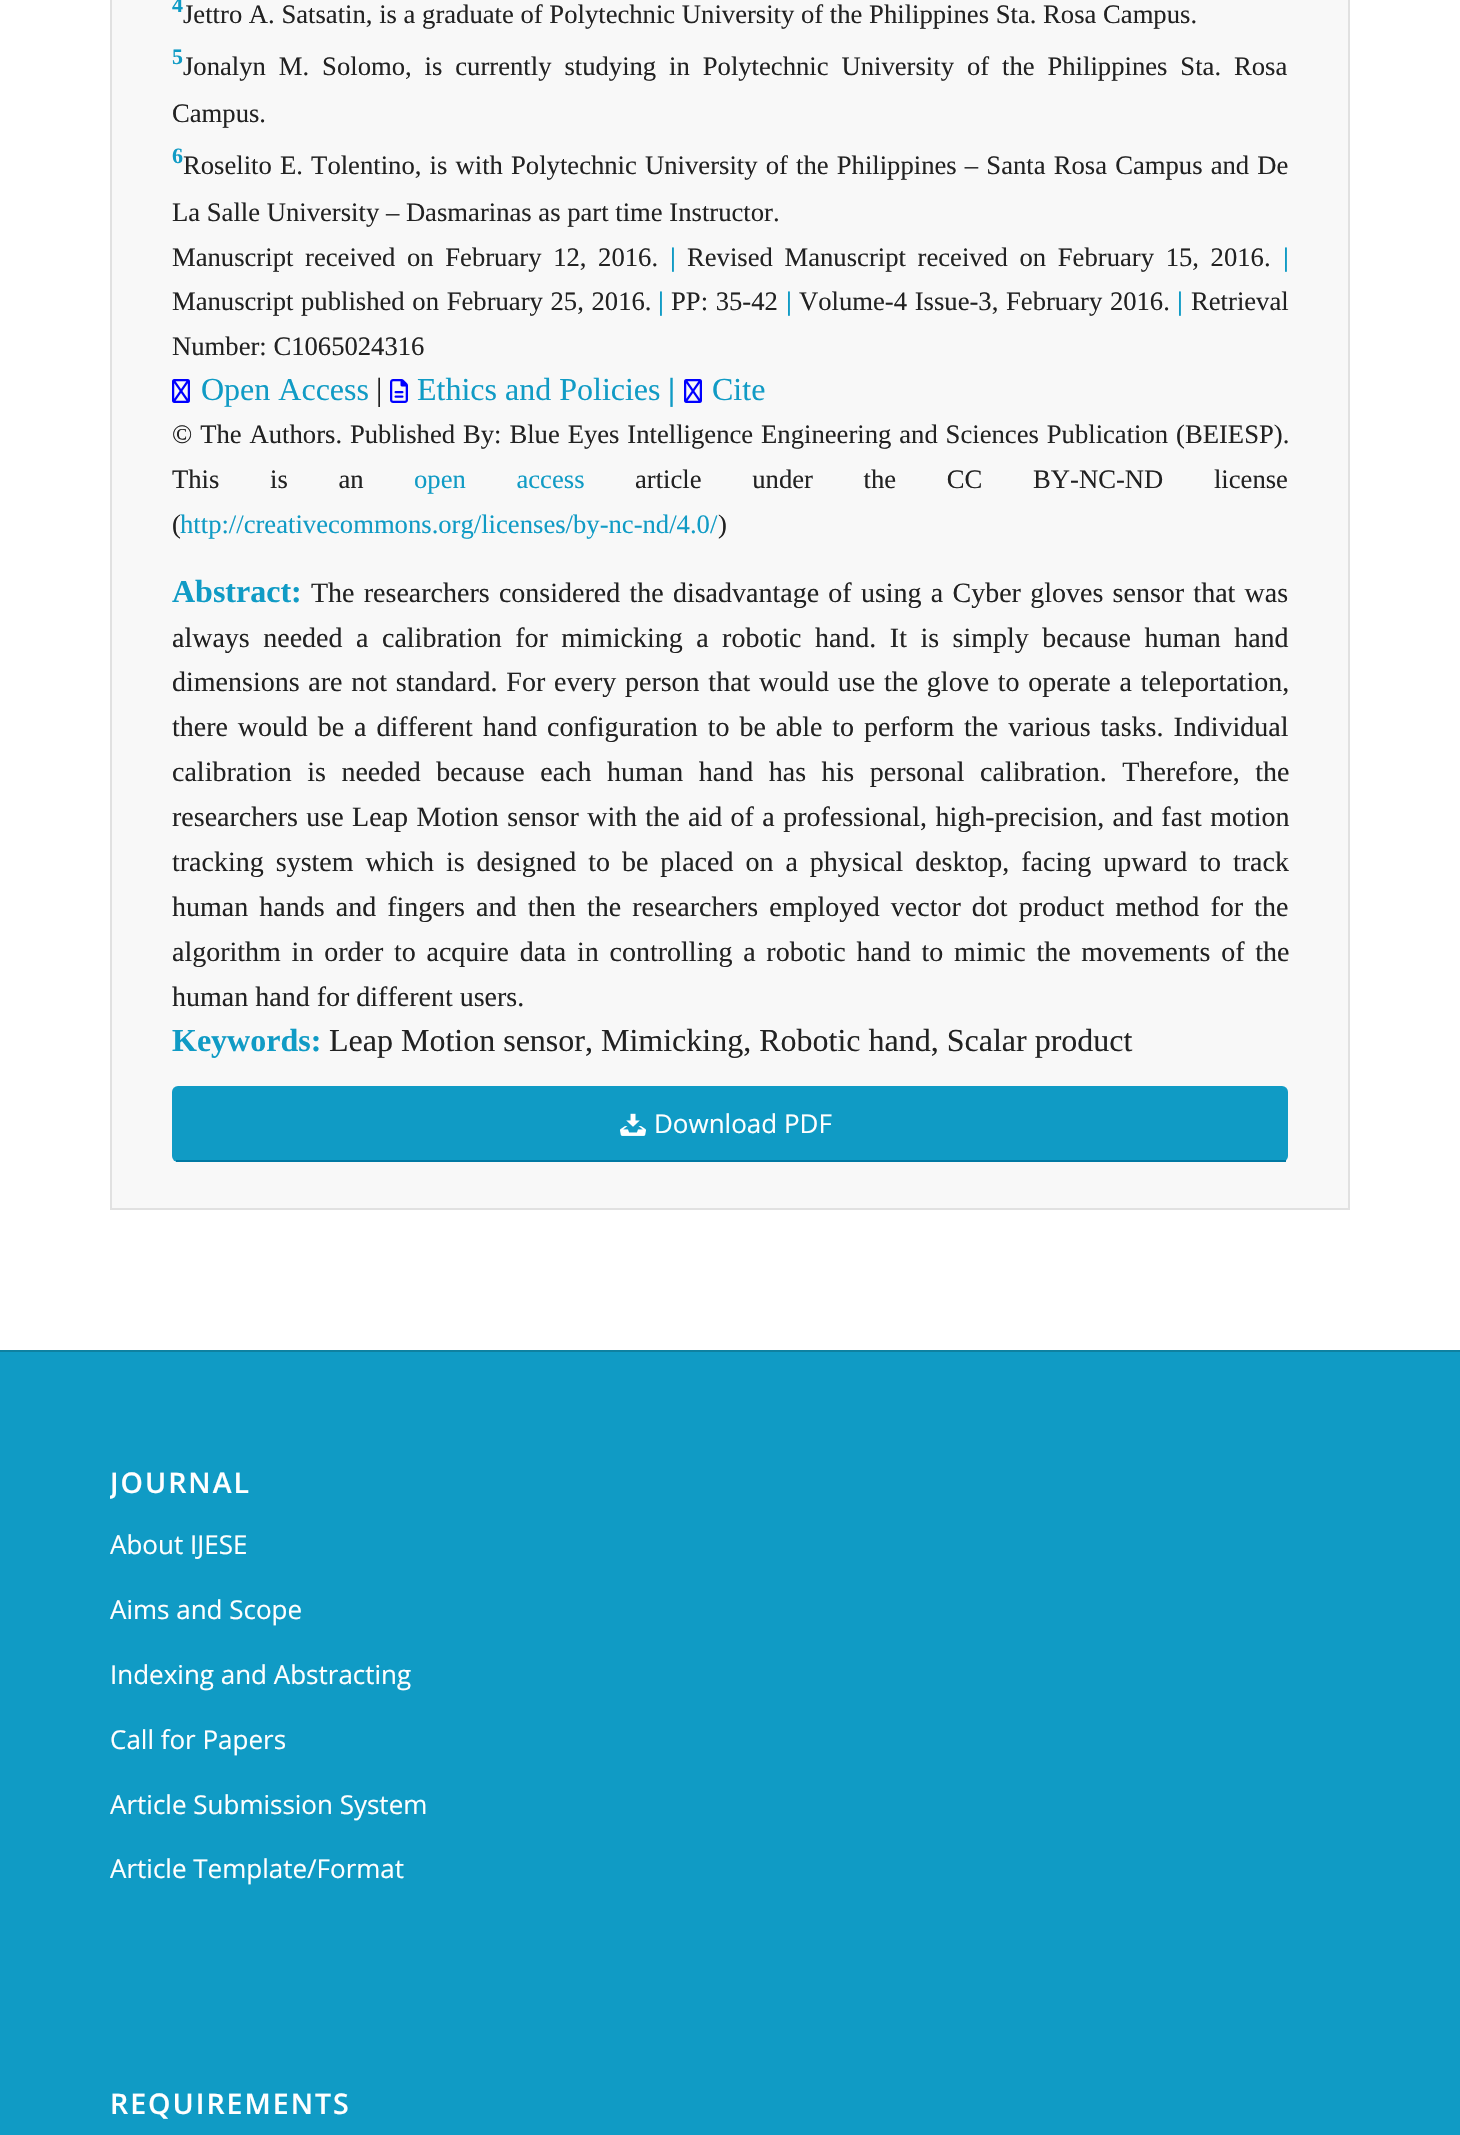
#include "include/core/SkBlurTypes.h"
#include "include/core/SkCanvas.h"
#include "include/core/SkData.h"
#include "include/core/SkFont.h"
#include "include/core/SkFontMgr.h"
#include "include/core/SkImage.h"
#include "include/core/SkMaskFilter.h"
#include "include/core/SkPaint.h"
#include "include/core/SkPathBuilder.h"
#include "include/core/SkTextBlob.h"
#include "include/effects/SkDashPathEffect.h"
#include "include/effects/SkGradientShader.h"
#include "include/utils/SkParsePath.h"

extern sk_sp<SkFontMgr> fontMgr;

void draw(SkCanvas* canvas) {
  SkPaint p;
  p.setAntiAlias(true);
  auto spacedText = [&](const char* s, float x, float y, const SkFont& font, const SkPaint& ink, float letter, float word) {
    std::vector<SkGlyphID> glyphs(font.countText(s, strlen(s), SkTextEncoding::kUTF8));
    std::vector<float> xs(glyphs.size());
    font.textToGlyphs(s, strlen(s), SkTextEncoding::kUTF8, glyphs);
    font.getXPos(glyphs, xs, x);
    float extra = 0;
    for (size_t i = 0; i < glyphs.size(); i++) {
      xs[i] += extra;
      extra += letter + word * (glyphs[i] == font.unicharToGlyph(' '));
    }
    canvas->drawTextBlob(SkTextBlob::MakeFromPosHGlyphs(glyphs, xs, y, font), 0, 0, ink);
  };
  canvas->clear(SkColorSetRGB(16, 155, 197));
  p.setColor(SK_ColorWHITE);
  canvas->drawRect(SkRect::MakeLTRB(0, 0, 1460, 1350), p);
  p.setColor(SkColorSetRGB(248, 248, 248));
  canvas->drawRect(SkRect::MakeLTRB(111, -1, 1349, 1209), p);
  p.setStyle(SkPaint::kStroke_Style);
  p.setStrokeWidth(2);
  p.setColor(SkColorSetRGB(225, 225, 225));
  canvas->drawRect(SkRect::MakeLTRB(111, -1, 1349, 1209), p);
  canvas->drawImageRect(SkImages::DeferredFromEncodedData(SkData::MakeFromFileName("images/1.png")), SkRect::MakeLTRB(172, 379, 190, 403), SkSamplingOptions());
  canvas->drawImageRect(SkImages::DeferredFromEncodedData(SkData::MakeFromFileName("images/2.png")), SkRect::MakeLTRB(390, 379, 408, 403), SkSamplingOptions());
  canvas->drawImageRect(SkImages::DeferredFromEncodedData(SkData::MakeFromFileName("images/1.png")), SkRect::MakeLTRB(684, 379, 702, 403), SkSamplingOptions());
  p.setStyle(SkPaint::kFill_Style);
  p.setColor(SkColorSetRGB(16, 155, 197));
  canvas->drawRoundRect(SkRect::MakeLTRB(172, 1086, 1288, 1162), 6, 6, p);
  p.setColor(SkColorSetRGB(0, 121, 163));
  canvas->drawRect(SkRect::MakeLTRB(176, 1160, 1286, 1162), p);
  canvas->drawImageRect(SkImages::DeferredFromEncodedData(SkData::MakeFromFileName("images/3.png")), SkRect::MakeLTRB(620, 1113, 646, 1136), SkSamplingOptions());
  p.setColor(SkColorSetRGB(15, 129, 161));
  canvas->drawRect(SkRect::MakeLTRB(0, 1350, 1460, 1352), p);
  SkFont font1(fontMgr->matchFamilyStyle("Liberation Serif", SkFontStyle::Bold()), 22);
  font1.setSubpixel(true);
  p.setColor(SkColorSetRGB(16, 155, 197));
  canvas->drawString("4", 172, 12, font1, p);
  SkFont font2(fontMgr->matchFamilyStyle("Liberation Serif", SkFontStyle::Normal()), 26.65f);
  font2.setSubpixel(true);
  p.setColor(SkColorSetRGB(34, 34, 34));
  canvas->drawString("Jettro A. Satsatin, is a graduate of Polytechnic University of the Philippines Sta. Rosa Campus.", 183, 23, font2, p);
  p.setColor(SkColorSetRGB(16, 155, 197));
  canvas->drawString("5", 172, 64, font1, p);
  p.setColor(SkColorSetRGB(34, 34, 34));
  spacedText("Jonalyn M. Solomo, is currently studying in Polytechnic University of the Philippines Sta. Rosa", 183, 75, font2, p, 0, 6.25f);
  canvas->drawString("Campus.", 172, 122, font2, p);
  p.setColor(SkColorSetRGB(16, 155, 197));
  canvas->drawString("6", 172, 163, font1, p);
  p.setColor(SkColorSetRGB(34, 34, 34));
  spacedText("Roselito E. Tolentino, is with Polytechnic University of the Philippines – Santa Rosa Campus and De", 183, 174, font2, p, 0, 1.5f);
  canvas->drawString("La Salle University – Dasmarinas as part time Instructor.", 172, 221, font2, p);
  spacedText("Manuscript received on February 12, 2016.", 172, 266, font2, p, 0, 5);
  SkFont font3(fontMgr->matchFamilyStyle("Liberation Serif", SkFontStyle::Bold()), 26.65f);
  font3.setSubpixel(true);
  p.setColor(SkColorSetRGB(16, 155, 197));
  canvas->drawString("|", 670, 266, font3, p);
  p.setColor(SkColorSetRGB(34, 34, 34));
  spacedText("Revised Manuscript received on February 15, 2016.", 687, 266, font2, p, 0, 5);
  p.setColor(SkColorSetRGB(16, 155, 197));
  canvas->drawString("|", 1283, 266, font3, p);
  p.setColor(SkColorSetRGB(34, 34, 34));
  spacedText("Manuscript published on February 25, 2016.", 172, 310, font2, p, 0, 1);
  p.setColor(SkColorSetRGB(16, 155, 197));
  canvas->drawString("|", 658, 310, font3, p);
  p.setColor(SkColorSetRGB(34, 34, 34));
  spacedText("PP: 35-42", 671, 310, font2, p, 0, 1);
  p.setColor(SkColorSetRGB(16, 155, 197));
  canvas->drawString("|", 786, 310, font3, p);
  p.setColor(SkColorSetRGB(34, 34, 34));
  spacedText("Volume-4 Issue-3, February 2016.", 799, 310, font2, p, 0, 1);
  p.setColor(SkColorSetRGB(16, 155, 197));
  canvas->drawString("|", 1177, 310, font3, p);
  p.setColor(SkColorSetRGB(34, 34, 34));
  canvas->drawString("Retrieval", 1191, 310, font2, p);
  canvas->drawString("Number: C1065024316", 172, 355, font2, p);
  SkFont font4(fontMgr->matchFamilyStyle("Liberation Serif", SkFontStyle::Normal()), 32);
  font4.setSubpixel(true);
  p.setColor(SkColorSetRGB(16, 155, 197));
  canvas->drawString("Open Access", 201, 400, font4, p);
  p.setColor(SkColorSetRGB(34, 34, 34));
  canvas->drawString("|", 376, 400, font4, p);
  p.setColor(SkColorSetRGB(16, 155, 197));
  canvas->drawString("Ethics and Policies", 417, 400, font4, p);
  SkFont font5(fontMgr->matchFamilyStyle("Liberation Serif", SkFontStyle::Bold()), 32);
  font5.setSubpixel(true);
  canvas->drawString("|", 668, 400, font5, p);
  canvas->drawString("Cite", 712, 400, font4, p);
  p.setColor(SkColorSetRGB(34, 34, 34));
  spacedText("© The Authors. Published By: Blue Eyes Intelligence Engineering and Sciences Publication (BEIESP).", 172, 443, font2, p, 0, 1.25f);
  spacedText("This is an", 172, 488, font2, p, 0, 44);
  p.setColor(SkColorSetRGB(16, 155, 197));
  spacedText("open access", 414, 488, font2, p, 0, 44);
  p.setColor(SkColorSetRGB(34, 34, 34));
  spacedText("article under the CC BY-NC-ND license", 635, 488, font2, p, 0, 44);
  canvas->drawString("(", 172, 533, font2, p);
  p.setColor(SkColorSetRGB(16, 155, 197));
  canvas->drawString("http://creativecommons.org/licenses/by-nc-nd/4.0/", 180, 533, font2, p);
  p.setColor(SkColorSetRGB(34, 34, 34));
  canvas->drawString(")", 718, 533, font2, p);
  p.setColor(SkColorSetRGB(16, 155, 197));
  canvas->drawString("Abstract:", 172, 602, font5, p);
  SkFont font6(fontMgr->matchFamilyStyle("Liberation Serif", SkFontStyle::Normal()), 28);
  font6.setSubpixel(true);
  p.setColor(SkColorSetRGB(34, 34, 34));
  spacedText("The researchers considered the disadvantage of using a Cyber gloves sensor that was", 311, 602, font6, p, 0, 2.25f);
  spacedText("always needed a calibration for mimicking a robotic hand. It is simply because human hand", 172, 647, font6, p, 0, 6.5f);
  spacedText("dimensions are not standard. For every person that would use the glove to operate a teleportation,", 172, 691, font6, p, 0, 1.75f);
  spacedText("there would be a different hand configuration to be able to perform the various tasks. Individual", 172, 736, font6, p, 0, 2.9f);
  spacedText("calibration is needed because each human hand has his personal calibration. Therefore, the", 172, 781, font6, p, 0, 8.5f);
  spacedText("researchers use Leap Motion sensor with the aid of a professional, high-precision, and fast motion", 172, 826, font6, p, 0, 1.4f);
  spacedText("tracking system which is designed to be placed on a physical desktop, facing upward to track", 172, 871, font6, p, 0, 5);
  spacedText("human hands and fingers and then the researchers employed vector dot product method for the", 172, 916, font6, p, 0, 4.1f);
  spacedText("algorithm in order to acquire data in controlling a robotic hand to mimic the movements of the", 172, 961, font6, p, 0, 3.75f);
  canvas->drawString("human hand for different users.", 172, 1006, font6, p);
  p.setColor(SkColorSetRGB(16, 155, 197));
  canvas->drawString("Keywords:", 172, 1051, font5, p);
  p.setColor(SkColorSetRGB(34, 34, 34));
  canvas->drawString("Leap Motion sensor, Mimicking, Robotic hand, Scalar product", 329, 1051, font4, p);
  SkFont font7(fontMgr->matchFamilyStyle("Open Sans", SkFontStyle::Normal()), 26);
  font7.setSubpixel(true);
  p.setColor(SK_ColorWHITE);
  canvas->drawString("Download PDF", 654, 1133, font7, p);
  canvas->save();
  canvas->clipRect(SkRect::MakeLTRB(110, 1442, 1350, 1904));
  SkFont font8(fontMgr->matchFamilyStyle("Open Sans", SkFontStyle(600, SkFontStyle::kNormal_Width, SkFontStyle::kUpright_Slant)), 28.5f);
  font8.setSubpixel(true);
  spacedText("JOURNAL", 110, 1493, font8, p, 2, 0);
  canvas->restore();
  canvas->drawString("About IJESE", 110, 1554, font7, p);
  canvas->drawString("Aims and Scope", 110, 1619, font7, p);
  canvas->drawString("Indexing and Abstracting", 110, 1684, font7, p);
  canvas->drawString("Call for Papers", 110, 1749, font7, p);
  canvas->drawString("Article Submission System", 110, 1814, font7, p);
  canvas->drawString("Article Template/Format", 110, 1878, font7, p);
  spacedText("REQUIREMENTS", 110, 2114, font8, p, 2, 0);
}
